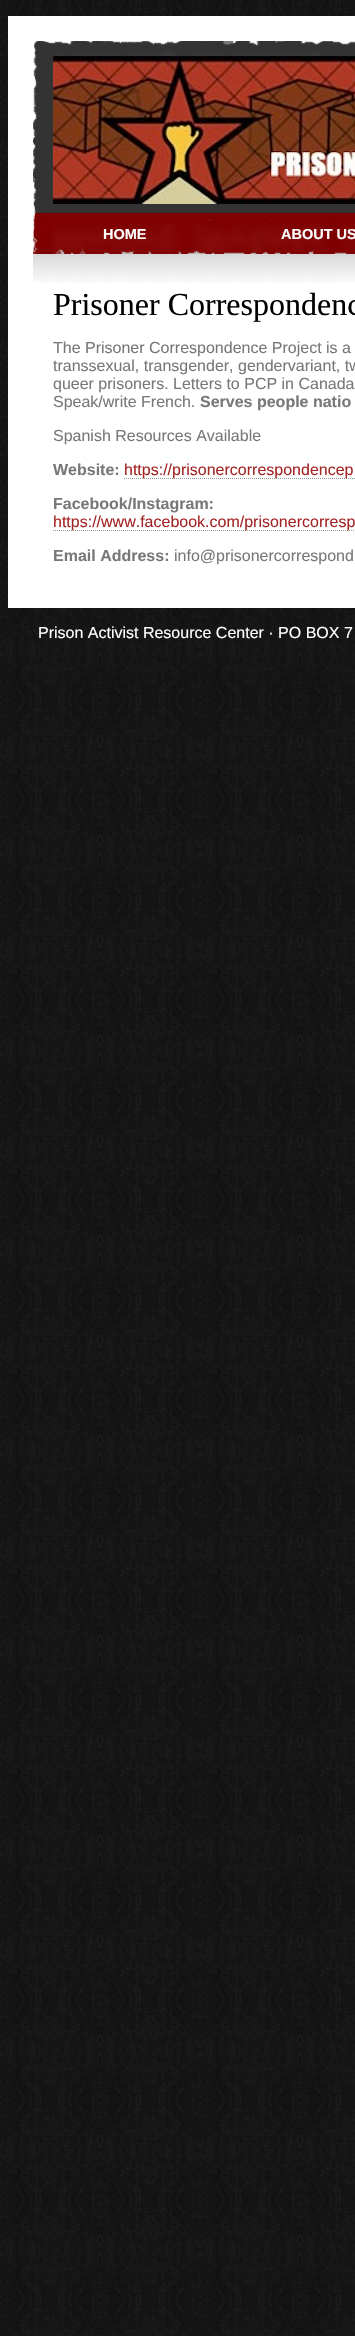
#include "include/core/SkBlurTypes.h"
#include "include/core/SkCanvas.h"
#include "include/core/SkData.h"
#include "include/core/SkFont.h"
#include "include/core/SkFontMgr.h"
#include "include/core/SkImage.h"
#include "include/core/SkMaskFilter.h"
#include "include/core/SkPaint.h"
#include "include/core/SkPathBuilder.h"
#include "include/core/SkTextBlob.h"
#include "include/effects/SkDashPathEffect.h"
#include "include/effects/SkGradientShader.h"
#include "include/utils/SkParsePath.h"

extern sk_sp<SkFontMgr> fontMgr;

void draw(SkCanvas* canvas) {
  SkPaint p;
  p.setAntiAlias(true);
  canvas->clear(SK_ColorWHITE);
  canvas->drawImageRect(SkImages::DeferredFromEncodedData(SkData::MakeFromFileName("images/1.png")), SkRect::MakeLTRB(0, 0, 355, 2336), SkSamplingOptions());
  p.setColor(SK_ColorWHITE);
  canvas->drawRect(SkRect::MakeLTRB(8, 16, 355, 608), p);
  p.setColor(SkColorSetRGB(51, 51, 51));
  canvas->drawRect(SkRect::MakeLTRB(33, 41, 355, 213), p);
  canvas->drawImageRect(SkImages::DeferredFromEncodedData(SkData::MakeFromFileName("images/2.png")), SkRect::MakeLTRB(52, 51, 321, 189), SkSamplingOptions());
  canvas->drawImageRect(SkImages::DeferredFromEncodedData(SkData::MakeFromFileName("images/3.png")), SkRect::MakeLTRB(33, 41, 355, 213), SkSamplingOptions());
  canvas->drawImageRect(SkImages::DeferredFromEncodedData(SkData::MakeFromFileName("images/4.png")), SkRect::MakeLTRB(53, 56, 355, 204), SkSamplingOptions());
  p.setColor(SkColorSetRGB(127, 0, 0));
  canvas->drawRect(SkRect::MakeLTRB(33, 213, 355, 254), p);
  canvas->drawImageRect(SkImages::DeferredFromEncodedData(SkData::MakeFromFileName("images/5.png")), SkRect::MakeLTRB(52, 223, 355, 254), SkSamplingOptions());
  canvas->drawImageRect(SkImages::DeferredFromEncodedData(SkData::MakeFromFileName("images/6.png")), SkRect::MakeLTRB(33, 213, 347, 254), SkSamplingOptions());
  canvas->drawImageRect(SkImages::DeferredFromEncodedData(SkData::MakeFromFileName("images/7.png")), SkRect::MakeLTRB(33, 254, 355, 283), SkSamplingOptions());
  p.setStyle(SkPaint::kStroke_Style);
  p.setStrokeWidth(1);
  p.setColor(SkColorSetRGB(153, 153, 153));
  p.setPathEffect(SkDashPathEffect::Make({{1, 1}}, 0));
  canvas->drawPath(SkPathBuilder().moveTo(124, 478.5f).lineTo(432, 478.5f).detach(), p);
  p.setPathEffect(nullptr);
  p.setPathEffect(SkDashPathEffect::Make({{1, 1}}, 0));
  canvas->drawPath(SkPathBuilder().moveTo(53, 530.5f).lineTo(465, 530.5f).detach(), p);
  p.setPathEffect(nullptr);
  SkFont font1(fontMgr->matchFamilyStyle("Liberation Sans", SkFontStyle::Bold()), 14.5f);
  font1.setSubpixel(true);
  p.setStyle(SkPaint::kFill_Style);
  p.setColor(SK_ColorWHITE);
  canvas->drawString("HOME", 103, 239, font1, p);
  canvas->drawString("ABOUT US", 281, 239, font1, p);
  SkFont font2(fontMgr->matchFamilyStyle("Liberation Serif", SkFontStyle::Normal()), 32);
  font2.setSubpixel(true);
  p.setColor(SK_ColorBLACK);
  canvas->drawString("Prisoner Correspondenc", 53, 315, font2, p);
  SkFont font3(fontMgr->matchFamilyStyle("Liberation Sans", SkFontStyle::Normal()), 16);
  font3.setSubpixel(true);
  p.setColor(SkColorSetRGB(120, 120, 120));
  canvas->drawString("The Prisoner Correspondence Project is a", 53, 353, font3, p);
  canvas->drawString("transsexual, transgender, gendervariant, tw", 53, 371, font3, p);
  canvas->drawString("queer prisoners. Letters to PCP in Canada", 53, 389, font3, p);
  canvas->drawString("Speak/write French.", 53, 407, font3, p);
  SkFont font4(fontMgr->matchFamilyStyle("Liberation Sans", SkFontStyle::Bold()), 16);
  font4.setSubpixel(true);
  canvas->drawString("Serves people natio", 200, 407, font4, p);
  canvas->drawString("Spanish Resources Available", 53, 441, font3, p);
  canvas->drawString("Website:", 53, 475, font4, p);
  p.setColor(SkColorSetRGB(164, 36, 36));
  canvas->drawString("https://prisonercorrespondencep", 124, 475, font3, p);
  p.setColor(SkColorSetRGB(120, 120, 120));
  canvas->drawString("Facebook/Instagram:", 53, 509, font4, p);
  p.setColor(SkColorSetRGB(164, 36, 36));
  canvas->drawString("https://www.facebook.com/prisonercorresp", 53, 527, font3, p);
  p.setColor(SkColorSetRGB(120, 120, 120));
  canvas->drawString("Email Address:", 53, 561, font4, p);
  canvas->drawString("info@prisonercorrespond", 174, 561, font3, p);
  p.setColor(SK_ColorWHITE);
  canvas->drawString("Prison Activist Resource Center · PO BOX 7", 38, 638, font3, p);
}
